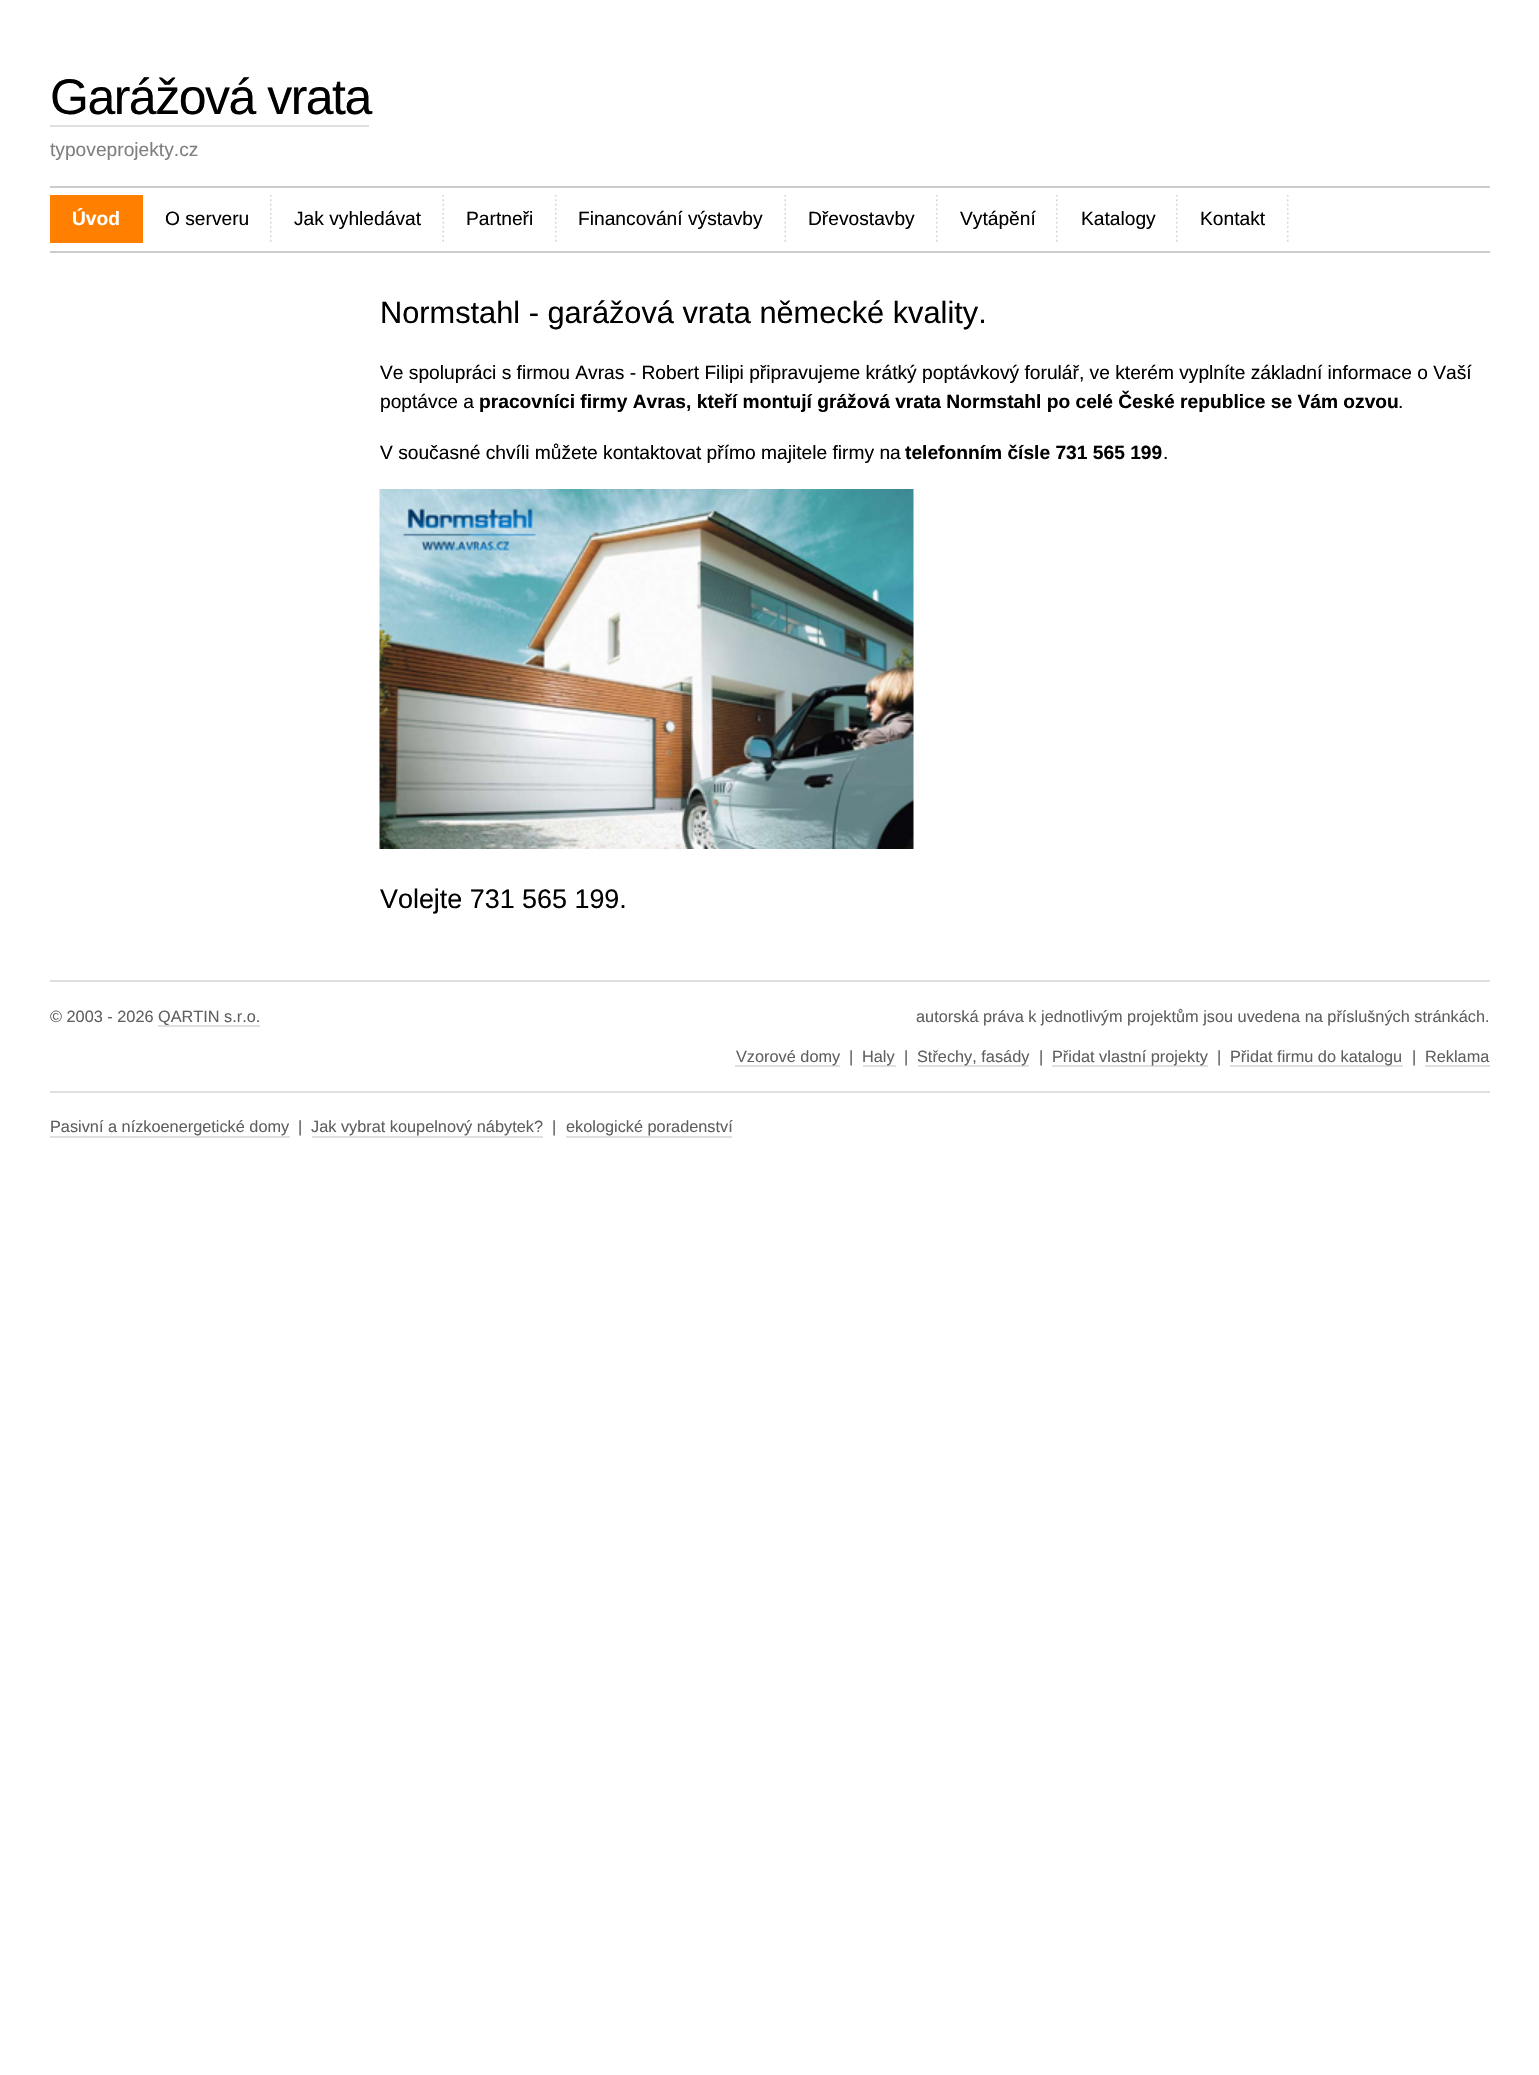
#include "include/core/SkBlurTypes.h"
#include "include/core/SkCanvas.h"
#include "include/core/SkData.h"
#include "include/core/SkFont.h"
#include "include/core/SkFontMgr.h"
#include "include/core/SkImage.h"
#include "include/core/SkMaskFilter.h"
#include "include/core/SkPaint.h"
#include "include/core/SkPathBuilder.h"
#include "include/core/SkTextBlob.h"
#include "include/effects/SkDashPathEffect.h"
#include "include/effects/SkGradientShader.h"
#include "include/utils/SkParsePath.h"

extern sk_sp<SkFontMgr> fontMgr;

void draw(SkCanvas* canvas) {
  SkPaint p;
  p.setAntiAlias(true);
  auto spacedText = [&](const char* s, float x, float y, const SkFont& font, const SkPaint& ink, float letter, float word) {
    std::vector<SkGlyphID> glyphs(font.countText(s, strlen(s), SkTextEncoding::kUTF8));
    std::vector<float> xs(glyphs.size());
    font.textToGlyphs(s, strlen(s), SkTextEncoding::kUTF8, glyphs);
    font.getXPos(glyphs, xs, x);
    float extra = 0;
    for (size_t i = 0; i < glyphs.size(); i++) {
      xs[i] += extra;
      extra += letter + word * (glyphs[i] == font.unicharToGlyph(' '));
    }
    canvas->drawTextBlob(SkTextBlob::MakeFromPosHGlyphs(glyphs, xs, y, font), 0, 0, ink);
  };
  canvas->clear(SK_ColorWHITE);
  p.setColor(SkColorSetRGB(223, 223, 223));
  canvas->drawRect(SkRect::MakeLTRB(50, 125, 369, 127), p);
  p.setColor(SkColorSetRGB(204, 204, 204));
  canvas->drawRect(SkRect::MakeLTRB(50, 186, 1490, 188), p);
  canvas->drawRect(SkRect::MakeLTRB(50, 251, 1490, 253), p);
  p.setColor(SkColorSetRGB(255, 127, 0));
  canvas->drawRect(SkRect::MakeLTRB(50, 195, 143, 243), p);
  canvas->drawImageRect(SkImages::DeferredFromEncodedData(SkData::MakeFromFileName("images/1.png")), SkRect::MakeLTRB(270, 195, 272, 242), SkSamplingOptions());
  canvas->drawImageRect(SkImages::DeferredFromEncodedData(SkData::MakeFromFileName("images/2.png")), SkRect::MakeLTRB(442, 195, 444, 242), SkSamplingOptions());
  canvas->drawImageRect(SkImages::DeferredFromEncodedData(SkData::MakeFromFileName("images/1.png")), SkRect::MakeLTRB(555, 195, 557, 242), SkSamplingOptions());
  canvas->drawImageRect(SkImages::DeferredFromEncodedData(SkData::MakeFromFileName("images/2.png")), SkRect::MakeLTRB(784, 195, 786, 242), SkSamplingOptions());
  canvas->drawImageRect(SkImages::DeferredFromEncodedData(SkData::MakeFromFileName("images/1.png")), SkRect::MakeLTRB(936, 195, 938, 242), SkSamplingOptions());
  canvas->drawImageRect(SkImages::DeferredFromEncodedData(SkData::MakeFromFileName("images/1.png")), SkRect::MakeLTRB(1056, 195, 1058, 242), SkSamplingOptions());
  canvas->drawImageRect(SkImages::DeferredFromEncodedData(SkData::MakeFromFileName("images/1.png")), SkRect::MakeLTRB(1176, 195, 1178, 242), SkSamplingOptions());
  canvas->drawImageRect(SkImages::DeferredFromEncodedData(SkData::MakeFromFileName("images/1.png")), SkRect::MakeLTRB(1287, 195, 1289, 242), SkSamplingOptions());
  canvas->drawImageRect(SkImages::DeferredFromEncodedData(SkData::MakeFromFileName("images/3.png")), SkRect::MakeLTRB(379, 489, 914, 849), SkSamplingOptions());
  p.setColor(SkColorSetRGB(223, 223, 223));
  canvas->drawRect(SkRect::MakeLTRB(50, 980, 1490, 982), p);
  canvas->drawRect(SkRect::MakeLTRB(158, 1025, 260, 1027), p);
  canvas->drawRect(SkRect::MakeLTRB(735, 1065, 840, 1067), p);
  canvas->drawRect(SkRect::MakeLTRB(863, 1065, 896, 1067), p);
  canvas->drawRect(SkRect::MakeLTRB(918, 1065, 1029, 1067), p);
  canvas->drawRect(SkRect::MakeLTRB(1052, 1065, 1208, 1067), p);
  canvas->drawRect(SkRect::MakeLTRB(1230, 1065, 1403, 1067), p);
  canvas->drawRect(SkRect::MakeLTRB(1425, 1065, 1490, 1067), p);
  canvas->drawRect(SkRect::MakeLTRB(50, 1091, 1490, 1093), p);
  canvas->drawRect(SkRect::MakeLTRB(50, 1136, 290, 1138), p);
  canvas->drawRect(SkRect::MakeLTRB(312, 1136, 543, 1138), p);
  canvas->drawRect(SkRect::MakeLTRB(566, 1136, 732, 1138), p);
  SkFont font1(fontMgr->matchFamilyStyle("Liberation Sans", SkFontStyle::Normal()), 50);
  font1.setSubpixel(true);
  p.setColor(SK_ColorBLACK);
  spacedText("Garážová vrata", 50, 114, font1, p, -1.5f, 0);
  SkFont font2(fontMgr->matchFamilyStyle("Liberation Sans", SkFontStyle::Normal()), 19.2f);
  font2.setSubpixel(true);
  p.setColor(SkColorSetRGB(127, 127, 127));
  canvas->drawString("typoveprojekty.cz", 50, 156, font2, p);
  SkFont font3(fontMgr->matchFamilyStyle("Liberation Sans", SkFontStyle::Bold()), 19.2f);
  font3.setSubpixel(true);
  p.setColor(SK_ColorWHITE);
  canvas->drawString("Úvod", 72, 225, font3, p);
  p.setColor(SK_ColorBLACK);
  canvas->drawString("O serveru", 165, 225, font2, p);
  canvas->drawString("Jak vyhledávat", 294, 225, font2, p);
  canvas->drawString("Partneři", 466, 225, font2, p);
  canvas->drawString("Financování výstavby", 578, 225, font2, p);
  canvas->drawString("Dřevostavby", 808, 225, font2, p);
  canvas->drawString("Vytápění", 960, 225, font2, p);
  canvas->drawString("Katalogy", 1081, 225, font2, p);
  canvas->drawString("Kontakt", 1200, 225, font2, p);
  SkFont font4(fontMgr->matchFamilyStyle("Liberation Sans", SkFontStyle::Normal()), 30.75f);
  font4.setSubpixel(true);
  canvas->drawString("Normstahl - garážová vrata německé kvality.", 380, 323, font4, p);
  canvas->drawString("Ve spolupráci s firmou Avras - Robert Filipi připravujeme krátký poptávkový forulář, ve kterém vyplníte základní informace o Vaší", 380, 379, font2, p);
  canvas->drawString("poptávce a", 380, 408, font2, p);
  canvas->drawString("pracovníci firmy Avras, kteří montují grážová vrata Normstahl po celé České republice se Vám ozvou", 479, 408, font3, p);
  canvas->drawString(".", 1398, 408, font2, p);
  canvas->drawString("V současné chvíli můžete kontaktovat přímo majitele firmy na", 380, 459, font2, p);
  canvas->drawString("telefonním čísle 731 565 199", 905, 459, font3, p);
  canvas->drawString(".", 1163, 459, font2, p);
  SkFont font5(fontMgr->matchFamilyStyle("Liberation Sans", SkFontStyle::Normal()), 26.9f);
  font5.setSubpixel(true);
  canvas->drawString("Volejte 731 565 199.", 380, 908, font5, p);
  SkFont font6(fontMgr->matchFamilyStyle("Liberation Sans", SkFontStyle::Normal()), 16.3f);
  font6.setSubpixel(true);
  p.setColor(SkColorSetRGB(95, 95, 95));
  canvas->drawString("© 2003 - 2026", 50, 1022, font6, p);
  canvas->drawString("QARTIN s.r.o.", 158, 1022, font6, p);
  canvas->drawString("autorská práva k jednotlivým projektům jsou uvedena na příslušných stránkách.", 916, 1022, font6, p);
  canvas->drawString("Vzorové domy", 736, 1062, font6, p);
  canvas->drawString("|", 849, 1062, font6, p);
  canvas->drawString("Haly", 862, 1062, font6, p);
  canvas->drawString("|", 904, 1062, font6, p);
  canvas->drawString("Střechy, fasády", 917, 1062, font6, p);
  canvas->drawString("|", 1039, 1062, font6, p);
  canvas->drawString("Přidat vlastní projekty", 1052, 1062, font6, p);
  canvas->drawString("|", 1217, 1062, font6, p);
  canvas->drawString("Přidat firmu do katalogu", 1230, 1062, font6, p);
  canvas->drawString("|", 1412, 1062, font6, p);
  canvas->drawString("Reklama", 1425, 1062, font6, p);
  canvas->drawString("Pasivní a nízkoenergetické domy", 50, 1132, font6, p);
  canvas->drawString("|", 298, 1132, font6, p);
  canvas->drawString("Jak vybrat koupelnový nábytek?", 311, 1132, font6, p);
  canvas->drawString("|", 552, 1132, font6, p);
  canvas->drawString("ekologické poradenství", 566, 1132, font6, p);
}
